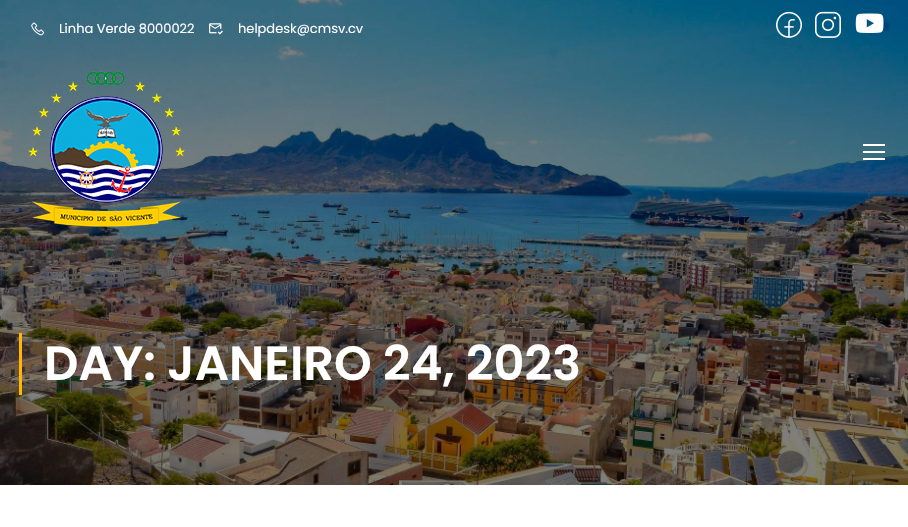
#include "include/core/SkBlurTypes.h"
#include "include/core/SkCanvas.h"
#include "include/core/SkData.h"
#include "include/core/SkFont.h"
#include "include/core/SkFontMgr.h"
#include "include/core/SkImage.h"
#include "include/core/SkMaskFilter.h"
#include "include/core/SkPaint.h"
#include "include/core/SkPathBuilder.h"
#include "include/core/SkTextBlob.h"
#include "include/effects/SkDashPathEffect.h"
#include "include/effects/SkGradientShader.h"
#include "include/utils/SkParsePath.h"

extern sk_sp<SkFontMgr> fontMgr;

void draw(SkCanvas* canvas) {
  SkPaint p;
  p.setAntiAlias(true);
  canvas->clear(SK_ColorWHITE);
  canvas->drawImageRect(SkImages::DeferredFromEncodedData(SkData::MakeFromFileName("images/7.png")), SkRect::MakeLTRB(0, 0, 908, 485), SkSamplingOptions());
  canvas->drawImageRect(SkImages::DeferredFromEncodedData(SkData::MakeFromFileName("images/1.png")), SkRect::MakeLTRB(31, 22, 45, 36), SkSamplingOptions());
  canvas->drawImageRect(SkImages::DeferredFromEncodedData(SkData::MakeFromFileName("images/2.png")), SkRect::MakeLTRB(209, 23, 223, 35), SkSamplingOptions());
  canvas->drawImageRect(SkImages::DeferredFromEncodedData(SkData::MakeFromFileName("images/3.png")), SkRect::MakeLTRB(776, 11, 802, 38), SkSamplingOptions());
  canvas->drawImageRect(SkImages::DeferredFromEncodedData(SkData::MakeFromFileName("images/4.png")), SkRect::MakeLTRB(815, 11, 841, 38), SkSamplingOptions());
  canvas->drawImageRect(SkImages::DeferredFromEncodedData(SkData::MakeFromFileName("images/5.png")), SkRect::MakeLTRB(855, 13, 884, 33), SkSamplingOptions());
  canvas->drawImageRect(SkImages::DeferredFromEncodedData(SkData::MakeFromFileName("images/6.png")), SkRect::MakeLTRB(28, 71, 186, 227), SkSamplingOptions());
  p.setColor(SK_ColorWHITE);
  canvas->drawRect(SkRect::MakeLTRB(863, 144, 885, 146), p);
  canvas->drawRect(SkRect::MakeLTRB(863, 151, 885, 153), p);
  canvas->drawRect(SkRect::MakeLTRB(863, 158, 885, 160), p);
  p.setColor(SkColorSetRGB(255, 182, 6));
  canvas->drawRect(SkRect::MakeLTRB(19, 333, 22, 395), p);
  SkFont font1(fontMgr->matchFamilyStyle("Poppins", SkFontStyle::Normal()), 13);
  font1.setSubpixel(true);
  p.setColor(SK_ColorWHITE);
  canvas->drawString("Linha Verde 8000022", 59, 33, font1, p);
  canvas->drawString("helpdesk@cmsv.cv", 238, 33, font1, p);
  SkFont font2(fontMgr->matchFamilyStyle("Poppins", SkFontStyle(600, SkFontStyle::kNormal_Width, SkFontStyle::kUpright_Slant)), 48);
  font2.setSubpixel(true);
  canvas->drawString("DAY: JANEIRO 24, 2023", 44, 380, font2, p);
}
